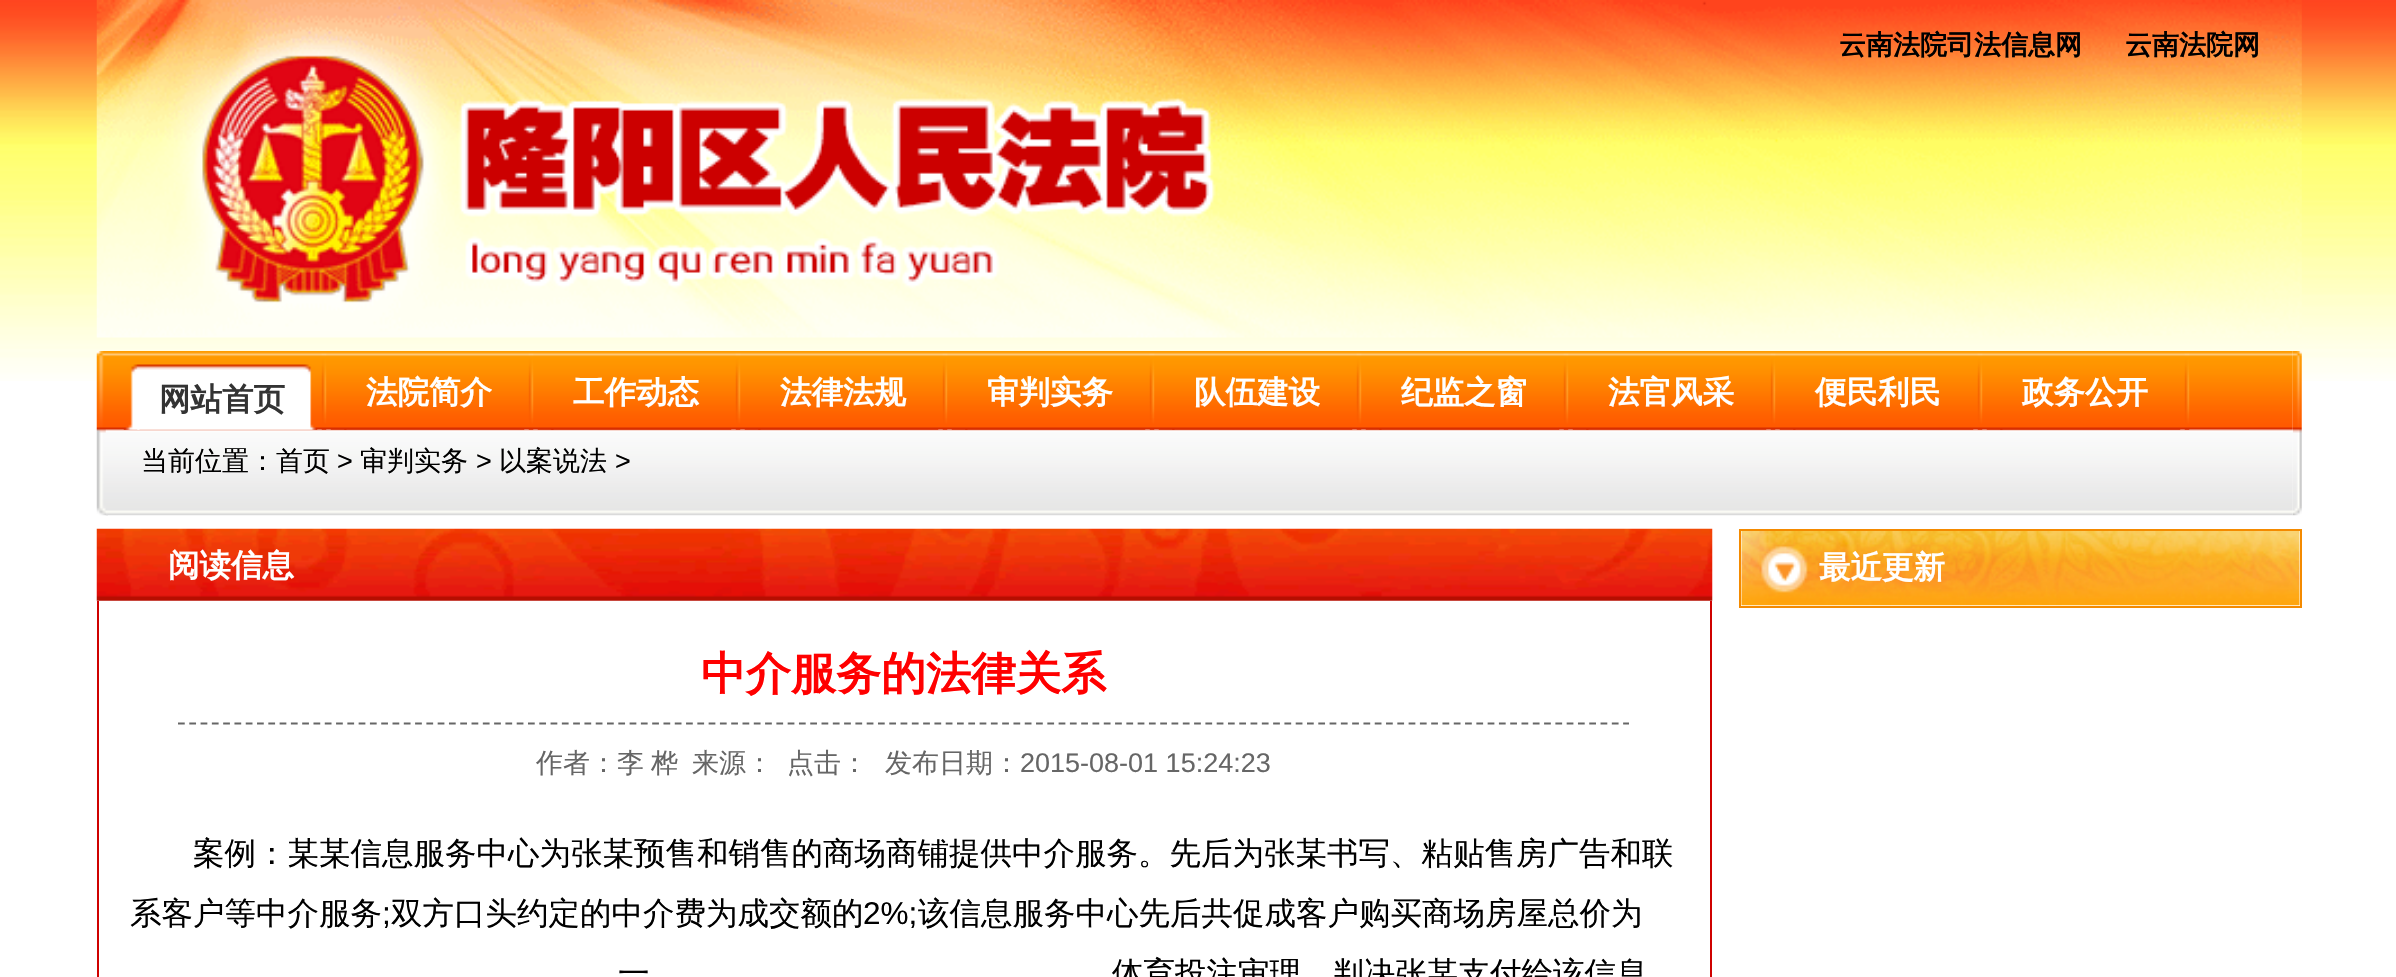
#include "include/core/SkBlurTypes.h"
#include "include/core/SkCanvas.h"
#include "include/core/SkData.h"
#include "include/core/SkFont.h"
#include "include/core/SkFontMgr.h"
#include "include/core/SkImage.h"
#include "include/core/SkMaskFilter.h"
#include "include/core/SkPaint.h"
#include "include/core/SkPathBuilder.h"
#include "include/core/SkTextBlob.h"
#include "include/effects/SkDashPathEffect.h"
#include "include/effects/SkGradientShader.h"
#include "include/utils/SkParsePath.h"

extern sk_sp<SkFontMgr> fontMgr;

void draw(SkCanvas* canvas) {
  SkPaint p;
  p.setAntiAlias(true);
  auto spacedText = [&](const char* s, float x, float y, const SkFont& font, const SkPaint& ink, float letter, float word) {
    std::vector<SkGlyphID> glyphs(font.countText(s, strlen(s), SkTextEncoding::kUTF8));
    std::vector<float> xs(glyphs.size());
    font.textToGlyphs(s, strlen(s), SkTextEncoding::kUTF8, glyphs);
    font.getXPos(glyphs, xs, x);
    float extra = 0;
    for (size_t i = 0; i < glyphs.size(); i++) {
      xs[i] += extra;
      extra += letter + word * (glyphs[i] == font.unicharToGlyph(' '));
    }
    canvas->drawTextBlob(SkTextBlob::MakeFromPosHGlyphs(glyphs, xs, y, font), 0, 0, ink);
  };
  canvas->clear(SK_ColorWHITE);
  canvas->drawImageRect(SkImages::DeferredFromEncodedData(SkData::MakeFromFileName("images/1.png")), SkRect::MakeLTRB(0, 0, 2396, 381), SkSamplingOptions());
  canvas->drawImageRect(SkImages::DeferredFromEncodedData(SkData::MakeFromFileName("images/2.png")), SkRect::MakeLTRB(96, 0, 2302, 338), SkSamplingOptions());
  canvas->drawImageRect(SkImages::DeferredFromEncodedData(SkData::MakeFromFileName("images/3.png")), SkRect::MakeLTRB(96, 351, 108, 516), SkSamplingOptions());
  canvas->drawImageRect(SkImages::DeferredFromEncodedData(SkData::MakeFromFileName("images/4.png")), SkRect::MakeLTRB(2292, 351, 2302, 516), SkSamplingOptions());
  canvas->drawImageRect(SkImages::DeferredFromEncodedData(SkData::MakeFromFileName("images/5.png")), SkRect::MakeLTRB(105, 351, 2293, 516), SkSamplingOptions());
  canvas->drawImageRect(SkImages::DeferredFromEncodedData(SkData::MakeFromFileName("images/6.png")), SkRect::MakeLTRB(123, 364, 140, 430), SkSamplingOptions());
  canvas->drawImageRect(SkImages::DeferredFromEncodedData(SkData::MakeFromFileName("images/7.png")), SkRect::MakeLTRB(137, 364, 318, 430), SkSamplingOptions());
  canvas->drawImageRect(SkImages::DeferredFromEncodedData(SkData::MakeFromFileName("images/8.png")), SkRect::MakeLTRB(321, 353, 327, 430), SkSamplingOptions());
  canvas->drawImageRect(SkImages::DeferredFromEncodedData(SkData::MakeFromFileName("images/9.png")), SkRect::MakeLTRB(330, 429, 347, 430), SkSamplingOptions());
  canvas->drawImageRect(SkImages::DeferredFromEncodedData(SkData::MakeFromFileName("images/10.png")), SkRect::MakeLTRB(344, 429, 525, 430), SkSamplingOptions());
  canvas->drawImageRect(SkImages::DeferredFromEncodedData(SkData::MakeFromFileName("images/8.png")), SkRect::MakeLTRB(528, 353, 534, 430), SkSamplingOptions());
  canvas->drawImageRect(SkImages::DeferredFromEncodedData(SkData::MakeFromFileName("images/9.png")), SkRect::MakeLTRB(537, 429, 554, 430), SkSamplingOptions());
  canvas->drawImageRect(SkImages::DeferredFromEncodedData(SkData::MakeFromFileName("images/10.png")), SkRect::MakeLTRB(551, 429, 732, 430), SkSamplingOptions());
  canvas->drawImageRect(SkImages::DeferredFromEncodedData(SkData::MakeFromFileName("images/8.png")), SkRect::MakeLTRB(735, 353, 741, 430), SkSamplingOptions());
  canvas->drawImageRect(SkImages::DeferredFromEncodedData(SkData::MakeFromFileName("images/9.png")), SkRect::MakeLTRB(744, 429, 761, 430), SkSamplingOptions());
  canvas->drawImageRect(SkImages::DeferredFromEncodedData(SkData::MakeFromFileName("images/10.png")), SkRect::MakeLTRB(758, 429, 939, 430), SkSamplingOptions());
  canvas->drawImageRect(SkImages::DeferredFromEncodedData(SkData::MakeFromFileName("images/8.png")), SkRect::MakeLTRB(942, 353, 948, 430), SkSamplingOptions());
  canvas->drawImageRect(SkImages::DeferredFromEncodedData(SkData::MakeFromFileName("images/9.png")), SkRect::MakeLTRB(951, 429, 968, 430), SkSamplingOptions());
  canvas->drawImageRect(SkImages::DeferredFromEncodedData(SkData::MakeFromFileName("images/10.png")), SkRect::MakeLTRB(965, 429, 1146, 430), SkSamplingOptions());
  canvas->drawImageRect(SkImages::DeferredFromEncodedData(SkData::MakeFromFileName("images/8.png")), SkRect::MakeLTRB(1149, 353, 1155, 430), SkSamplingOptions());
  canvas->drawImageRect(SkImages::DeferredFromEncodedData(SkData::MakeFromFileName("images/9.png")), SkRect::MakeLTRB(1158, 429, 1175, 430), SkSamplingOptions());
  canvas->drawImageRect(SkImages::DeferredFromEncodedData(SkData::MakeFromFileName("images/10.png")), SkRect::MakeLTRB(1172, 429, 1353, 430), SkSamplingOptions());
  canvas->drawImageRect(SkImages::DeferredFromEncodedData(SkData::MakeFromFileName("images/8.png")), SkRect::MakeLTRB(1356, 353, 1362, 430), SkSamplingOptions());
  canvas->drawImageRect(SkImages::DeferredFromEncodedData(SkData::MakeFromFileName("images/9.png")), SkRect::MakeLTRB(1365, 429, 1382, 430), SkSamplingOptions());
  canvas->drawImageRect(SkImages::DeferredFromEncodedData(SkData::MakeFromFileName("images/10.png")), SkRect::MakeLTRB(1379, 429, 1560, 430), SkSamplingOptions());
  canvas->drawImageRect(SkImages::DeferredFromEncodedData(SkData::MakeFromFileName("images/8.png")), SkRect::MakeLTRB(1563, 353, 1569, 430), SkSamplingOptions());
  canvas->drawImageRect(SkImages::DeferredFromEncodedData(SkData::MakeFromFileName("images/9.png")), SkRect::MakeLTRB(1572, 429, 1589, 430), SkSamplingOptions());
  canvas->drawImageRect(SkImages::DeferredFromEncodedData(SkData::MakeFromFileName("images/10.png")), SkRect::MakeLTRB(1586, 429, 1767, 430), SkSamplingOptions());
  canvas->drawImageRect(SkImages::DeferredFromEncodedData(SkData::MakeFromFileName("images/8.png")), SkRect::MakeLTRB(1770, 353, 1776, 430), SkSamplingOptions());
  canvas->drawImageRect(SkImages::DeferredFromEncodedData(SkData::MakeFromFileName("images/9.png")), SkRect::MakeLTRB(1779, 429, 1796, 430), SkSamplingOptions());
  canvas->drawImageRect(SkImages::DeferredFromEncodedData(SkData::MakeFromFileName("images/10.png")), SkRect::MakeLTRB(1793, 429, 1974, 430), SkSamplingOptions());
  canvas->drawImageRect(SkImages::DeferredFromEncodedData(SkData::MakeFromFileName("images/8.png")), SkRect::MakeLTRB(1977, 353, 1983, 430), SkSamplingOptions());
  canvas->drawImageRect(SkImages::DeferredFromEncodedData(SkData::MakeFromFileName("images/9.png")), SkRect::MakeLTRB(1986, 429, 2003, 430), SkSamplingOptions());
  canvas->drawImageRect(SkImages::DeferredFromEncodedData(SkData::MakeFromFileName("images/10.png")), SkRect::MakeLTRB(2000, 429, 2181, 430), SkSamplingOptions());
  canvas->drawImageRect(SkImages::DeferredFromEncodedData(SkData::MakeFromFileName("images/8.png")), SkRect::MakeLTRB(2184, 353, 2190, 430), SkSamplingOptions());
  canvas->drawImageRect(SkImages::DeferredFromEncodedData(SkData::MakeFromFileName("images/11.png")), SkRect::MakeLTRB(96, 528, 1713, 601), SkSamplingOptions());
  p.setColor(SkColorSetRGB(207, 1, 0));
  canvas->drawRect(SkRect::MakeLTRB(1710, 601, 1712, 977), p);
  canvas->drawRect(SkRect::MakeLTRB(97, 601, 99, 977), p);
  p.setStyle(SkPaint::kStroke_Style);
  p.setStrokeWidth(2.2f);
  p.setColor(SkColorSetRGB(102, 102, 102));
  p.setPathEffect(SkDashPathEffect::Make({{6.75f, 4.54f}}, 0));
  canvas->drawPath(SkPathBuilder().moveTo(178, 723.5f).lineTo(1629, 723.5f).detach(), p);
  p.setPathEffect(nullptr);
  p.setStrokeWidth(2);
  p.setColor(SkColorSetRGB(244, 138, 0));
  canvas->drawRect(SkRect::MakeLTRB(1740, 530, 2301, 607), p);
  canvas->drawImageRect(SkImages::DeferredFromEncodedData(SkData::MakeFromFileName("images/12.png")), SkRect::MakeLTRB(1741, 531, 2300, 606), SkSamplingOptions());
  SkFont font1(fontMgr->matchFamilyStyle("WenQuanYi Zen Hei", SkFontStyle::Bold()), 27);
  font1.setSubpixel(true);
  p.setStyle(SkPaint::kFill_Style);
  p.setColor(SK_ColorBLACK);
  canvas->drawString("云南法院司法信息网", 1839, 54, font1, p);
  canvas->drawString("云南法院网", 2125, 54, font1, p);
  SkFont font2(fontMgr->matchFamilyStyle("WenQuanYi Zen Hei", SkFontStyle::Bold()), 31.5f);
  font2.setSubpixel(true);
  p.setColor(SkColorSetRGB(51, 51, 51));
  canvas->drawString("网站首页", 159, 410, font2, p);
  p.setColor(SK_ColorWHITE);
  canvas->drawString("法院简介", 366, 403, font2, p);
  canvas->drawString("工作动态", 573, 403, font2, p);
  canvas->drawString("法律法规", 780, 403, font2, p);
  canvas->drawString("审判实务", 987, 403, font2, p);
  canvas->drawString("队伍建设", 1194, 403, font2, p);
  canvas->drawString("纪监之窗", 1401, 403, font2, p);
  canvas->drawString("法官风采", 1608, 403, font2, p);
  canvas->drawString("便民利民", 1815, 403, font2, p);
  canvas->drawString("政务公开", 2022, 403, font2, p);
  SkFont font3(fontMgr->matchFamilyStyle("WenQuanYi Zen Hei", SkFontStyle(500, SkFontStyle::kNormal_Width, SkFontStyle::kUpright_Slant)), 27);
  font3.setSubpixel(true);
  p.setColor(SK_ColorBLACK);
  canvas->drawString("当前位置：首页", 141, 470, font3, p);
  SkFont font4(fontMgr->matchFamilyStyle("Liberation Sans", SkFontStyle::Normal()), 27);
  font4.setSubpixel(true);
  canvas->drawString(">", 337, 470, font4, p);
  canvas->drawString("审判实务", 360, 470, font3, p);
  canvas->drawString(">", 476, 470, font4, p);
  canvas->drawString("以案说法", 499, 470, font3, p);
  canvas->drawString(">", 615, 470, font4, p);
  p.setColor(SK_ColorWHITE);
  canvas->drawString("阅读信息", 168, 576, font2, p);
  SkFont font5(fontMgr->matchFamilyStyle("WenQuanYi Zen Hei", SkFontStyle::Bold()), 45);
  font5.setSubpixel(true);
  p.setColor(SkColorSetRGB(255, 0, 0));
  canvas->drawString("中介服务的法律关系", 701, 689, font5, p);
  p.setColor(SkColorSetRGB(102, 102, 102));
  spacedText("作者：李 桦", 536, 772, font3, p, 0, -1);
  canvas->drawString("来源：", 692, 772, font3, p);
  canvas->drawString("点击：", 787, 772, font3, p);
  canvas->drawString("发布日期：", 885, 772, font3, p);
  canvas->drawString("2015-08-01 15:24:23", 1020, 772, font4, p);
  SkFont font6(fontMgr->matchFamilyStyle("WenQuanYi Zen Hei", SkFontStyle(500, SkFontStyle::kNormal_Width, SkFontStyle::kUpright_Slant)), 31.5f);
  font6.setSubpixel(true);
  p.setColor(SK_ColorBLACK);
  canvas->drawString("案例：某某信息服务中心为张某预售和销售的商场商铺提供中介服务。先后为张某书写、粘贴售房广告和联", 193, 864, font6, p);
  canvas->drawString("系客户等中介服务", 130, 924, font6, p);
  SkFont font7(fontMgr->matchFamilyStyle("Liberation Sans", SkFontStyle::Normal()), 31.5f);
  font7.setSubpixel(true);
  canvas->drawString(";", 382, 924, font7, p);
  canvas->drawString("双方口头约定的中介费为成交额的", 391, 924, font6, p);
  canvas->drawString("2%;", 863, 924, font7, p);
  canvas->drawString("该信息服务中心先后共促成客户购买商场房屋总价为", 918, 924, font6, p);
  canvas->drawString("一", 618, 984, font6, p);
  canvas->drawString("体育投注审理，判决张某支付给该信息", 1112, 984, font6, p);
  p.setColor(SK_ColorWHITE);
  canvas->drawString("最近更新", 1819, 578, font2, p);
}
